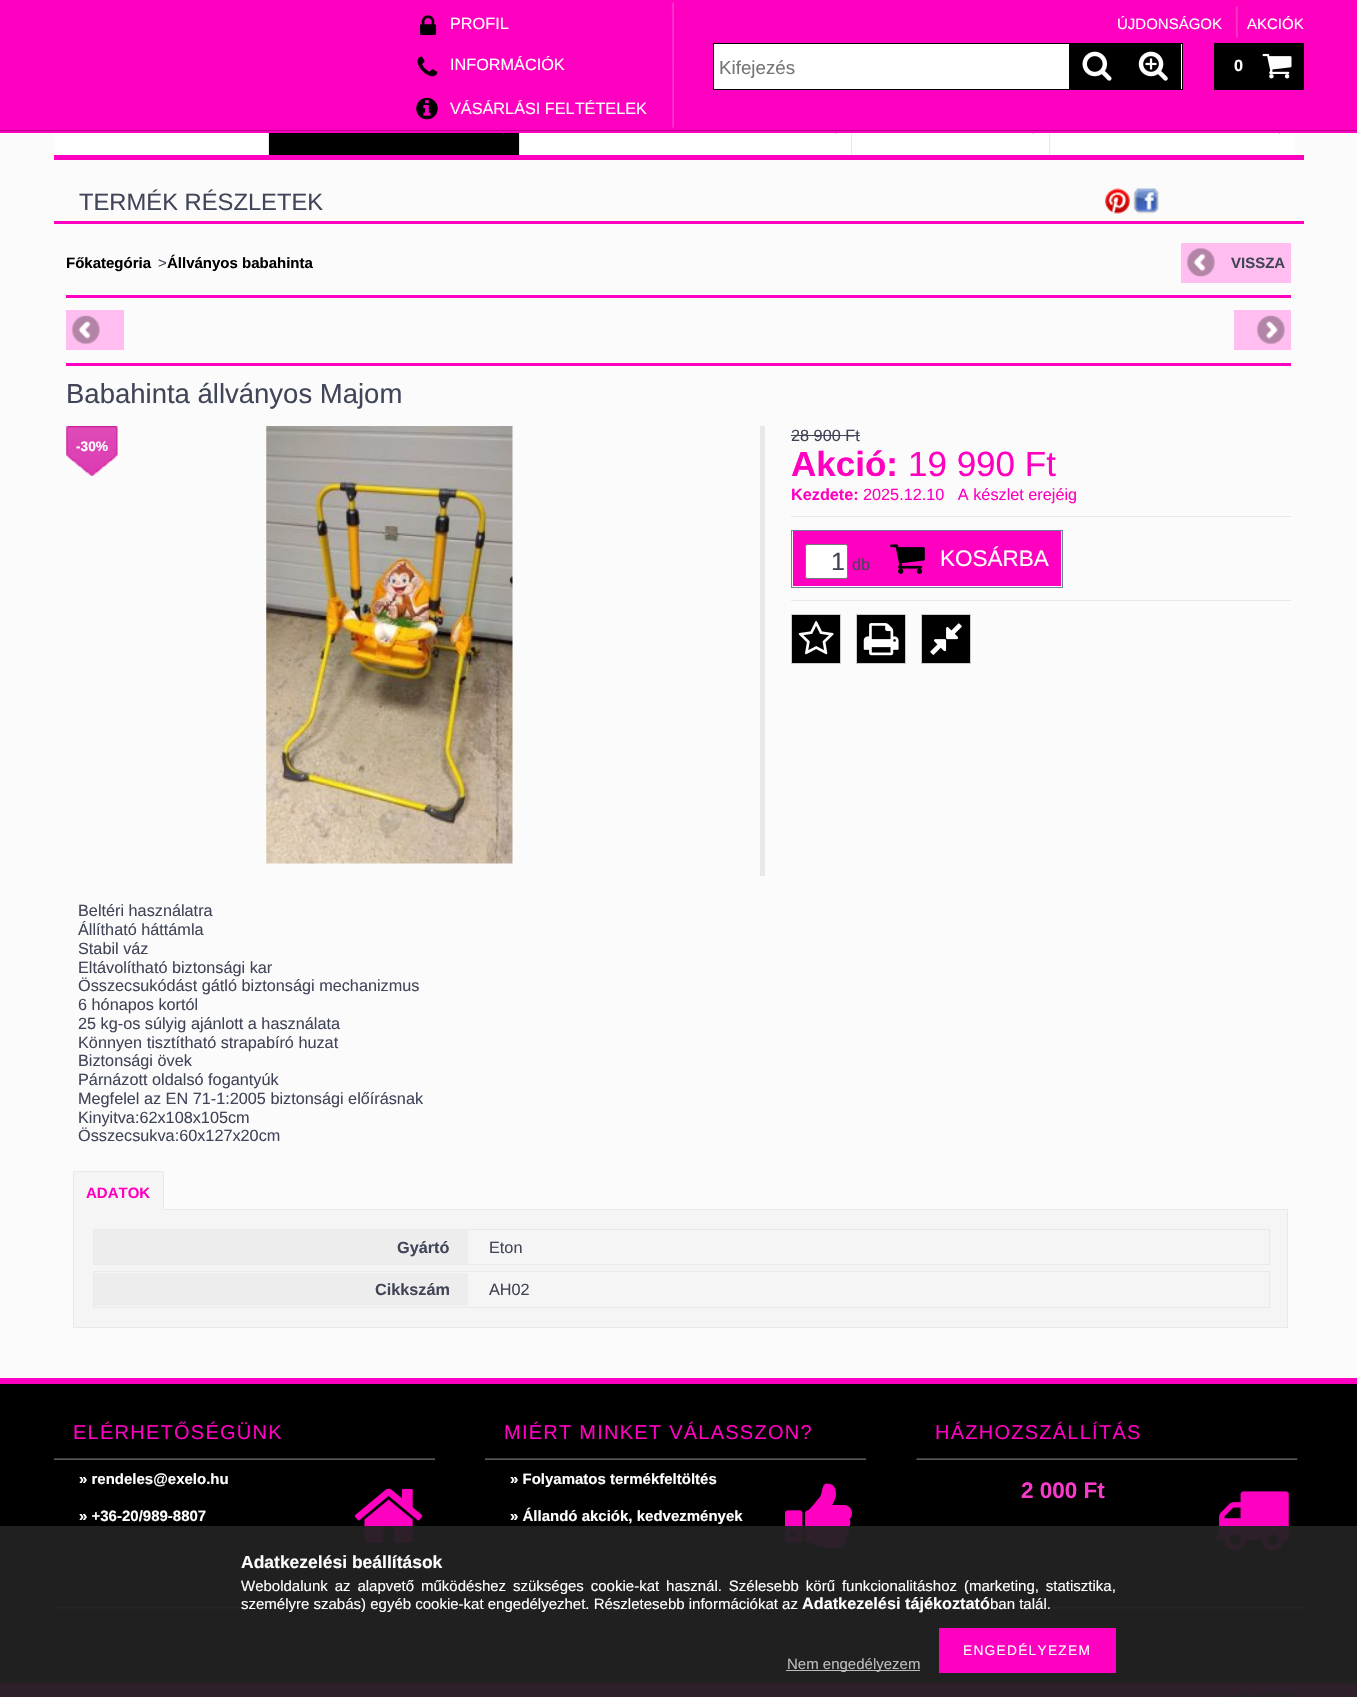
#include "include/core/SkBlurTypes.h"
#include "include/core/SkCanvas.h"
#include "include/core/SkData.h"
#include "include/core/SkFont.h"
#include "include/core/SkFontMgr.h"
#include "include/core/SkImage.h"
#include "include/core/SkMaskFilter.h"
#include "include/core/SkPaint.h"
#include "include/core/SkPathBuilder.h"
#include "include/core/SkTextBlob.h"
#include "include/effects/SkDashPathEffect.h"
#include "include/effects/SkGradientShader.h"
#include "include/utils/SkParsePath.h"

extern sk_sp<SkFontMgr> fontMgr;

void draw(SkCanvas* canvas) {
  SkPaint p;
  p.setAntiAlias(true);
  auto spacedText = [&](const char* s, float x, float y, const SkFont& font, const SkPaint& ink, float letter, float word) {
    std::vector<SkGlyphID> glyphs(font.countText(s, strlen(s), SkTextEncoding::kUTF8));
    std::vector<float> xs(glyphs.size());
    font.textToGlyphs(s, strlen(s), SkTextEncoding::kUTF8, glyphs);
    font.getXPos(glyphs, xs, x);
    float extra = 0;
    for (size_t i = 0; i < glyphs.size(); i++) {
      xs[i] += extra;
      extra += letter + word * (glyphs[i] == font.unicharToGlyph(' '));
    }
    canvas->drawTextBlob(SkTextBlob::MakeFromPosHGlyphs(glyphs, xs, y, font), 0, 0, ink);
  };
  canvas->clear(SkColorSetRGB(251, 251, 251));
  p.setColor(SkColorSetRGB(255, 0, 192));
  canvas->drawRect(SkRect::MakeLTRB(0, 0, 1357, 133), p);
  p.setColor(SkColorSetRGB(190, 1, 143));
  canvas->drawRect(SkRect::MakeLTRB(0, 130, 1357, 131), p);
  canvas->drawImageRect(SkImages::DeferredFromEncodedData(SkData::MakeFromFileName("images/1.png")), SkRect::MakeLTRB(671, 2, 674, 128), SkSamplingOptions());
  canvas->drawImageRect(SkImages::DeferredFromEncodedData(SkData::MakeFromFileName("images/2.png")), SkRect::MakeLTRB(420, 15, 437, 35), SkSamplingOptions());
  canvas->drawImageRect(SkImages::DeferredFromEncodedData(SkData::MakeFromFileName("images/3.png")), SkRect::MakeLTRB(417, 56, 438, 77), SkSamplingOptions());
  canvas->drawImageRect(SkImages::DeferredFromEncodedData(SkData::MakeFromFileName("images/4.png")), SkRect::MakeLTRB(416, 97, 438, 120), SkSamplingOptions());
  canvas->drawImageRect(SkImages::DeferredFromEncodedData(SkData::MakeFromFileName("images/5.png")), SkRect::MakeLTRB(1235, 6, 1238, 38), SkSamplingOptions());
  p.setColor(SK_ColorWHITE);
  canvas->drawRect(SkRect::MakeLTRB(713.5f, 43.5f, 1182.5f, 89.5f), p);
  p.setStyle(SkPaint::kStroke_Style);
  p.setStrokeWidth(1);
  p.setColor(SK_ColorBLACK);
  canvas->drawRect(SkRect::MakeLTRB(713.5f, 43.5f, 1182.5f, 89.5f), p);
  p.setStyle(SkPaint::kFill_Style);
  canvas->drawRect(SkRect::MakeLTRB(1069, 44, 1181, 89), p);
  canvas->drawImageRect(SkImages::DeferredFromEncodedData(SkData::MakeFromFileName("images/6.png")), SkRect::MakeLTRB(1082, 51, 1112, 81), SkSamplingOptions());
  canvas->drawImageRect(SkImages::DeferredFromEncodedData(SkData::MakeFromFileName("images/7.png")), SkRect::MakeLTRB(1138, 51, 1168, 81), SkSamplingOptions());
  canvas->drawRect(SkRect::MakeLTRB(1214, 43, 1304, 90), p);
  canvas->drawImageRect(SkImages::DeferredFromEncodedData(SkData::MakeFromFileName("images/8.png")), SkRect::MakeLTRB(1262, 53, 1292, 79), SkSamplingOptions());
  p.setColor(SK_ColorWHITE);
  canvas->drawRect(SkRect::MakeLTRB(54, 133, 268, 155), p);
  p.setColor(SkColorSetRGB(232, 232, 232));
  canvas->drawRect(SkRect::MakeLTRB(268, 133, 269, 155), p);
  p.setColor(SK_ColorBLACK);
  canvas->drawRect(SkRect::MakeLTRB(269, 133, 519, 155), p);
  p.setColor(SkColorSetRGB(232, 232, 232));
  canvas->drawRect(SkRect::MakeLTRB(519, 133, 520, 155), p);
  canvas->drawImageRect(SkImages::DeferredFromEncodedData(SkData::MakeFromFileName("images/9.png")), SkRect::MakeLTRB(502, 133, 504, 134), SkSamplingOptions());
  p.setColor(SK_ColorWHITE);
  canvas->drawRect(SkRect::MakeLTRB(520, 133, 1049, 155), p);
  p.setColor(SkColorSetRGB(232, 232, 232));
  canvas->drawRect(SkRect::MakeLTRB(851, 133, 852, 155), p);
  canvas->drawImageRect(SkImages::DeferredFromEncodedData(SkData::MakeFromFileName("images/10.png")), SkRect::MakeLTRB(835, 133, 837, 134), SkSamplingOptions());
  canvas->drawRect(SkRect::MakeLTRB(1049, 133, 1050, 155), p);
  canvas->drawImageRect(SkImages::DeferredFromEncodedData(SkData::MakeFromFileName("images/11.png")), SkRect::MakeLTRB(1032, 133, 1034, 134), SkSamplingOptions());
  p.setColor(SK_ColorWHITE);
  canvas->drawRect(SkRect::MakeLTRB(1050, 133, 1295, 155), p);
  canvas->drawImageRect(SkImages::DeferredFromEncodedData(SkData::MakeFromFileName("images/12.png")), SkRect::MakeLTRB(1279, 133, 1281, 134), SkSamplingOptions());
  p.setColor(SkColorSetRGB(255, 0, 192));
  canvas->drawRect(SkRect::MakeLTRB(54, 155, 1304, 160), p);
  canvas->drawRect(SkRect::MakeLTRB(54, 221, 1304, 224), p);
  p.setColor(SkColorSetRGB(255, 190, 239));
  canvas->drawRect(SkRect::MakeLTRB(1181, 243, 1291, 283), p);
  canvas->drawImageRect(SkImages::DeferredFromEncodedData(SkData::MakeFromFileName("images/13.png")), SkRect::MakeLTRB(1186, 247, 1215, 277), SkSamplingOptions());
  p.setColor(SkColorSetRGB(255, 0, 192));
  canvas->drawRect(SkRect::MakeLTRB(66, 295, 1291, 298), p);
  p.setColor(SkColorSetRGB(255, 190, 239));
  canvas->drawRect(SkRect::MakeLTRB(66, 310, 124, 350), p);
  canvas->drawImageRect(SkImages::DeferredFromEncodedData(SkData::MakeFromFileName("images/14.png")), SkRect::MakeLTRB(71, 315, 100, 345), SkSamplingOptions());
  canvas->drawRect(SkRect::MakeLTRB(1234, 310, 1291, 350), p);
  canvas->drawImageRect(SkImages::DeferredFromEncodedData(SkData::MakeFromFileName("images/15.png")), SkRect::MakeLTRB(1256, 315, 1285, 345), SkSamplingOptions());
  p.setColor(SkColorSetRGB(255, 0, 192));
  canvas->drawRect(SkRect::MakeLTRB(66, 363, 1291, 366), p);
  canvas->drawImageRect(SkImages::DeferredFromEncodedData(SkData::MakeFromFileName("images/16.png")), SkRect::MakeLTRB(1105, 188, 1130, 214), SkSamplingOptions());
  canvas->drawImageRect(SkImages::DeferredFromEncodedData(SkData::MakeFromFileName("images/17.png")), SkRect::MakeLTRB(1133, 188, 1159, 214), SkSamplingOptions());
  canvas->drawImageRect(SkImages::DeferredFromEncodedData(SkData::MakeFromFileName("images/18.png")), SkRect::MakeLTRB(66, 426, 118, 476), SkSamplingOptions());
  canvas->drawImageRect(SkImages::DeferredFromEncodedData(SkData::MakeFromFileName("images/19.png")), SkRect::MakeLTRB(266, 426, 513, 864), SkSamplingOptions());
  p.setColor(SkColorSetRGB(232, 232, 232));
  canvas->drawRect(SkRect::MakeLTRB(760, 426, 765, 876), p);
  canvas->drawRect(SkRect::MakeLTRB(791, 516, 1291, 517), p);
  p.setColor(SkColorSetRGB(65, 69, 88));
  canvas->drawRect(SkRect::MakeLTRB(791, 435, 860, 436), p);
  p.setColor(SkColorSetRGB(232, 232, 232));
  canvas->drawRect(SkRect::MakeLTRB(791, 600, 1291, 601), p);
  p.setStyle(SkPaint::kStroke_Style);
  p.setColor(SkColorSetRGB(109, 134, 150));
  canvas->drawRect(SkRect::MakeLTRB(791.5f, 530.5f, 1062.5f, 587.5f), p);
  p.setStyle(SkPaint::kFill_Style);
  p.setColor(SkColorSetRGB(255, 0, 192));
  canvas->drawRect(SkRect::MakeLTRB(793, 531, 1061, 586), p);
  p.setColor(SK_ColorWHITE);
  canvas->drawRoundRect(SkRect::MakeLTRB(805.5f, 544.5f, 847.5f, 578.5f), 2, 2, p);
  p.setStyle(SkPaint::kStroke_Style);
  p.setColor(SkColorSetRGB(118, 118, 118));
  canvas->drawRoundRect(SkRect::MakeLTRB(805.5f, 544.5f, 847.5f, 578.5f), 2, 2, p);
  canvas->drawImageRect(SkImages::DeferredFromEncodedData(SkData::MakeFromFileName("images/20.png")), SkRect::MakeLTRB(890, 544, 925, 574), SkSamplingOptions());
  p.setStyle(SkPaint::kFill_Style);
  p.setColor(SK_ColorBLACK);
  canvas->drawRect(SkRect::MakeLTRB(791.5f, 614.5f, 840.5f, 663.5f), p);
  p.setStyle(SkPaint::kStroke_Style);
  p.setColor(SkColorSetRGB(204, 204, 204));
  canvas->drawRect(SkRect::MakeLTRB(791.5f, 614.5f, 840.5f, 663.5f), p);
  canvas->drawImageRect(SkImages::DeferredFromEncodedData(SkData::MakeFromFileName("images/21.png")), SkRect::MakeLTRB(798, 621, 834, 655), SkSamplingOptions());
  p.setStyle(SkPaint::kFill_Style);
  p.setColor(SK_ColorBLACK);
  canvas->drawRect(SkRect::MakeLTRB(856.5f, 614.5f, 905.5f, 663.5f), p);
  p.setStyle(SkPaint::kStroke_Style);
  p.setColor(SkColorSetRGB(204, 204, 204));
  canvas->drawRect(SkRect::MakeLTRB(856.5f, 614.5f, 905.5f, 663.5f), p);
  canvas->drawImageRect(SkImages::DeferredFromEncodedData(SkData::MakeFromFileName("images/22.png")), SkRect::MakeLTRB(863, 623, 899, 656), SkSamplingOptions());
  p.setStyle(SkPaint::kFill_Style);
  p.setColor(SK_ColorBLACK);
  canvas->drawRect(SkRect::MakeLTRB(921.5f, 614.5f, 970.5f, 663.5f), p);
  p.setStyle(SkPaint::kStroke_Style);
  p.setColor(SkColorSetRGB(204, 204, 204));
  canvas->drawRect(SkRect::MakeLTRB(921.5f, 614.5f, 970.5f, 663.5f), p);
  canvas->drawImageRect(SkImages::DeferredFromEncodedData(SkData::MakeFromFileName("images/23.png")), SkRect::MakeLTRB(930, 623, 962, 655), SkSamplingOptions());
  p.setStyle(SkPaint::kFill_Style);
  p.setColor(SkColorSetRGB(245, 245, 245));
  canvas->drawRect(SkRect::MakeLTRB(74, 1172, 163, 1209), p);
  p.setColor(SkColorSetRGB(233, 233, 231));
  canvas->drawRect(SkRect::MakeLTRB(73, 1171, 164, 1172), p);
  p.setColor(SkColorSetRGB(245, 245, 245));
  canvas->drawRect(SkRect::MakeLTRB(73.5f, 1209.5f, 1287.5f, 1327.5f), p);
  p.setStyle(SkPaint::kStroke_Style);
  p.setColor(SkColorSetRGB(233, 233, 231));
  canvas->drawRect(SkRect::MakeLTRB(73.5f, 1209.5f, 1287.5f, 1327.5f), p);
  p.setStyle(SkPaint::kFill_Style);
  canvas->drawRect(SkRect::MakeLTRB(163, 1171, 164, 1210), p);
  p.setColor(SkColorSetRGB(245, 245, 245));
  canvas->drawRect(SkRect::MakeLTRB(73, 1209, 164, 1210), p);
  p.setColor(SkColorSetRGB(233, 233, 231));
  canvas->drawRect(SkRect::MakeLTRB(73, 1171, 74, 1210), p);
  p.setStyle(SkPaint::kStroke_Style);
  canvas->drawRect(SkRect::MakeLTRB(93.5f, 1229.5f, 1269.5f, 1264.5f), p);
  p.setStyle(SkPaint::kFill_Style);
  p.setColor(SkColorSetRGB(237, 237, 237));
  canvas->drawRect(SkRect::MakeLTRB(94, 1230, 468, 1264), p);
  p.setStyle(SkPaint::kStroke_Style);
  p.setColor(SkColorSetRGB(233, 233, 231));
  canvas->drawRect(SkRect::MakeLTRB(93.5f, 1271.5f, 1269.5f, 1307.5f), p);
  p.setStyle(SkPaint::kFill_Style);
  p.setColor(SkColorSetRGB(237, 237, 237));
  canvas->drawRect(SkRect::MakeLTRB(94, 1273, 468, 1306), p);
  p.setColor(SkColorSetRGB(255, 0, 192));
  canvas->drawRect(SkRect::MakeLTRB(0, 1378, 1357, 1384), p);
  p.setColor(SK_ColorBLACK);
  canvas->drawRect(SkRect::MakeLTRB(0, 1384, 1357, 1683), p);
  p.setColor(SkColorSetRGB(65, 69, 80));
  canvas->drawRect(SkRect::MakeLTRB(0, 1681, 1357, 1682), p);
  canvas->drawImageRect(SkImages::DeferredFromEncodedData(SkData::MakeFromFileName("images/24.png")), SkRect::MakeLTRB(53, 1607, 1304, 1609), SkSamplingOptions());
  canvas->drawImageRect(SkImages::DeferredFromEncodedData(SkData::MakeFromFileName("images/25.png")), SkRect::MakeLTRB(53, 1458, 435, 1460), SkSamplingOptions());
  canvas->drawImageRect(SkImages::DeferredFromEncodedData(SkData::MakeFromFileName("images/26.png")), SkRect::MakeLTRB(354, 1488, 423, 1543), SkSamplingOptions());
  canvas->drawImageRect(SkImages::DeferredFromEncodedData(SkData::MakeFromFileName("images/27.png")), SkRect::MakeLTRB(485, 1458, 867, 1460), SkSamplingOptions());
  canvas->drawImageRect(SkImages::DeferredFromEncodedData(SkData::MakeFromFileName("images/28.png")), SkRect::MakeLTRB(785, 1483, 852, 1548), SkSamplingOptions());
  canvas->drawImageRect(SkImages::DeferredFromEncodedData(SkData::MakeFromFileName("images/29.png")), SkRect::MakeLTRB(916, 1458, 1298, 1460), SkSamplingOptions());
  canvas->drawImageRect(SkImages::DeferredFromEncodedData(SkData::MakeFromFileName("images/30.png")), SkRect::MakeLTRB(1216, 1491, 1289, 1551), SkSamplingOptions());
  p.setColor(SkColorSetRGB(255, 0, 192));
  canvas->drawRect(SkRect::MakeLTRB(0, 1683, 1357, 1697), p);
  canvas->drawImageRect(SkImages::DeferredFromEncodedData(SkData::MakeFromFileName("images/31.png")), SkRect::MakeLTRB(1225, 1693, 1297, 1697), SkSamplingOptions());
  p.setColor(SkColorSetARGB(242, 34, 34, 34));
  canvas->drawRect(SkRect::MakeLTRB(0, 1526, 1357, 1697), p);
  p.setColor(SkColorSetRGB(255, 0, 192));
  canvas->drawRect(SkRect::MakeLTRB(939, 1628, 1116, 1673), p);
  p.setColor(SkColorSetRGB(188, 188, 188));
  canvas->drawRect(SkRect::MakeLTRB(786, 1670, 920, 1671), p);
  SkFont font1(fontMgr->matchFamilyStyle("Liberation Sans", SkFontStyle::Normal()), 16.25f);
  font1.setSubpixel(true);
  p.setColor(SK_ColorWHITE);
  canvas->drawString("PROFIL", 450, 29, font1, p);
  canvas->drawString("INFORMÁCIÓK", 450, 70, font1, p);
  canvas->drawString("VÁSÁRLÁSI FELTÉTELEK", 450, 114, font1, p);
  SkFont font2(fontMgr->matchFamilyStyle("Liberation Sans", SkFontStyle::Normal()), 15);
  font2.setSubpixel(true);
  canvas->drawString("ÚJDONSÁGOK", 1117, 29, font2, p);
  canvas->drawString("AKCIÓK", 1247, 29, font2, p);
  SkFont font3(fontMgr->matchFamilyStyle("Liberation Sans", SkFontStyle::Normal()), 18.75f);
  font3.setSubpixel(true);
  p.setColor(SkColorSetRGB(117, 117, 117));
  canvas->drawString("Kifejezés", 719, 74, font3, p);
  SkFont font4(fontMgr->matchFamilyStyle("Liberation Sans", SkFontStyle::Bold()), 16.25f);
  font4.setSubpixel(true);
  p.setColor(SK_ColorWHITE);
  canvas->drawString("0", 1234, 71, font4, p);
  SkFont font5(fontMgr->matchFamilyStyle("Liberation Sans", SkFontStyle::Normal()), 23.75f);
  font5.setSubpixel(true);
  p.setColor(SkColorSetRGB(65, 69, 88));
  canvas->drawString("TERMÉK RÉSZLETEK", 79, 210, font5, p);
  SkFont font6(fontMgr->matchFamilyStyle("Liberation Sans", SkFontStyle::Bold()), 15);
  font6.setSubpixel(true);
  p.setColor(SK_ColorBLACK);
  canvas->drawString("Főkategória", 66, 268, font6, p);
  p.setColor(SkColorSetRGB(65, 69, 88));
  canvas->drawString(">", 158, 268, font2, p);
  p.setColor(SK_ColorBLACK);
  canvas->drawString("Állványos babahinta", 167, 268, font6, p);
  p.setColor(SkColorSetRGB(65, 69, 88));
  canvas->drawString("VISSZA", 1231, 268, font6, p);
  SkFont font7(fontMgr->matchFamilyStyle("Liberation Sans", SkFontStyle::Normal()), 27.5f);
  font7.setSubpixel(true);
  canvas->drawString("Babahinta állványos Majom", 66, 403, font7, p);
  SkFont font8(fontMgr->matchFamilyStyle("Liberation Sans", SkFontStyle::Bold()), 13.75f);
  font8.setSubpixel(true);
  p.setColor(SK_ColorWHITE);
  canvas->drawString("-30%", 76, 451, font8, p);
  p.setColor(SkColorSetRGB(65, 69, 88));
  canvas->drawString("28 900 Ft", 791, 441, font1, p);
  SkFont font9(fontMgr->matchFamilyStyle("Liberation Sans", SkFontStyle::Bold()), 35);
  font9.setSubpixel(true);
  p.setColor(SkColorSetRGB(255, 0, 192));
  canvas->drawString("Akció:", 791, 476, font9, p);
  SkFont font10(fontMgr->matchFamilyStyle("Liberation Sans", SkFontStyle::Normal()), 35);
  font10.setSubpixel(true);
  canvas->drawString("19 990 Ft", 908, 476, font10, p);
  canvas->drawString("Kezdete:", 791, 500, font4, p);
  canvas->drawString("2025.12.10   A készlet erejéig", 863, 500, font1, p);
  SkFont font11(fontMgr->matchFamilyStyle("Liberation Sans", SkFontStyle::Normal()), 25);
  font11.setSubpixel(true);
  p.setColor(SkColorSetRGB(65, 69, 88));
  canvas->drawString("1", 831, 570, font11, p);
  canvas->drawString("db", 852, 570, font1, p);
  SkFont font12(fontMgr->matchFamilyStyle("Liberation Sans", SkFontStyle::Normal()), 22.5f);
  font12.setSubpixel(true);
  p.setColor(SK_ColorWHITE);
  canvas->drawString("KOSÁRBA", 940, 566, font12, p);
  p.setColor(SkColorSetRGB(65, 69, 88));
  canvas->drawString("Beltéri használatra", 78, 916, font1, p);
  canvas->drawString("Állítható háttámla", 78, 935, font1, p);
  canvas->drawString("Stabil váz", 78, 954, font1, p);
  canvas->drawString("Eltávolítható biztonsági kar", 78, 973, font1, p);
  canvas->drawString("Összecsukódást gátló biztonsági mechanizmus", 78, 991, font1, p);
  canvas->drawString("6 hónapos kortól", 78, 1010, font1, p);
  canvas->drawString("25 kg-os súlyig ajánlott a használata", 78, 1029, font1, p);
  canvas->drawString("Könnyen tisztítható strapabíró huzat", 78, 1048, font1, p);
  canvas->drawString("Biztonsági övek", 78, 1066, font1, p);
  canvas->drawString("Párnázott oldalsó fogantyúk", 78, 1085, font1, p);
  canvas->drawString("Megfelel az EN 71-1:2005 biztonsági előírásnak", 78, 1104, font1, p);
  canvas->drawString("Kinyitva:62x108x105cm", 78, 1123, font1, p);
  canvas->drawString("Összecsukva:60x127x20cm", 78, 1141, font1, p);
  p.setColor(SkColorSetRGB(255, 0, 192));
  canvas->drawString("ADATOK", 86, 1198, font6, p);
  p.setColor(SkColorSetRGB(65, 69, 88));
  canvas->drawString("Gyártó", 397, 1253, font4, p);
  canvas->drawString("Eton", 489, 1253, font1, p);
  canvas->drawString("Cikkszám", 375, 1295, font4, p);
  canvas->drawString("AH02", 489, 1295, font1, p);
  SkFont font13(fontMgr->matchFamilyStyle("Liberation Sans", SkFontStyle::Normal()), 20);
  font13.setSubpixel(true);
  p.setColor(SkColorSetRGB(255, 0, 192));
  spacedText("ELÉRHETŐSÉGÜNK", 73, 1439, font13, p, 1.25f, 0);
  p.setColor(SK_ColorWHITE);
  canvas->drawString("» rendeles@exelo.hu", 79, 1484, font6, p);
  canvas->drawString("» +36-20/989-8807", 79, 1521, font6, p);
  p.setColor(SkColorSetRGB(255, 0, 192));
  spacedText("MIÉRT MINKET VÁLASSZON?", 504, 1439, font13, p, 1.25f, 0);
  p.setColor(SK_ColorWHITE);
  canvas->drawString("» Folyamatos termékfeltöltés", 510, 1484, font6, p);
  canvas->drawString("» Állandó akciók, kedvezmények", 510, 1521, font6, p);
  p.setColor(SkColorSetRGB(255, 0, 192));
  spacedText("HÁZHOZSZÁLLÍTÁS", 935, 1439, font13, p, 1.25f, 0);
  SkFont font14(fontMgr->matchFamilyStyle("Liberation Sans", SkFontStyle::Bold()), 22.5f);
  font14.setSubpixel(true);
  p.setColor(SkColorSetRGB(250, 58, 203));
  canvas->drawString("2 000 Ft", 1021, 1498, font14, p);
  SkFont font15(fontMgr->matchFamilyStyle("Liberation Sans", SkFontStyle::Bold()), 17.5f);
  font15.setSubpixel(true);
  p.setColor(SK_ColorWHITE);
  canvas->drawString("Adatkezelési beállítások", 241, 1568, font15, p);
  spacedText("Weboldalunk az alapvető működéshez szükséges cookie-kat használ. Szélesebb körű funkcionalitáshoz (marketing, statisztika,", 241, 1591, font2, p, 0, 2.75f);
  canvas->drawString("személyre szabás) egyéb cookie-kat engedélyezhet. Részletesebb információkat az", 241, 1609, font2, p);
  canvas->drawString("Adatkezelési tájékoztató", 802, 1609, font4, p);
  canvas->drawString("ban talál.", 990, 1609, font2, p);
  SkFont font16(fontMgr->matchFamilyStyle("Liberation Sans", SkFontStyle::Normal()), 13.75f);
  font16.setSubpixel(true);
  spacedText("ENGEDÉLYEZEM", 963, 1655, font16, p, 1.25f, 0);
  p.setColor(SkColorSetRGB(188, 188, 188));
  canvas->drawString("Nem engedélyezem", 787, 1669, font2, p);
}
